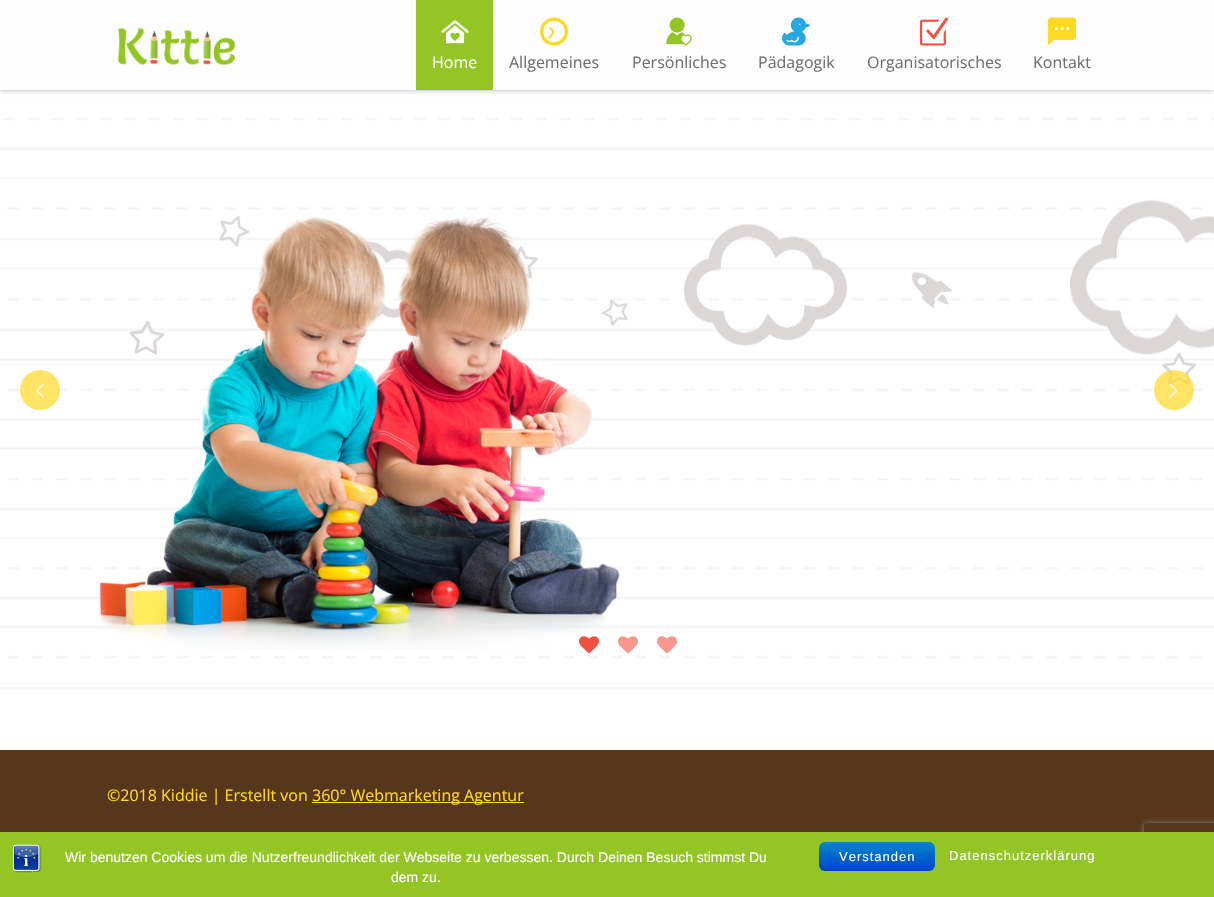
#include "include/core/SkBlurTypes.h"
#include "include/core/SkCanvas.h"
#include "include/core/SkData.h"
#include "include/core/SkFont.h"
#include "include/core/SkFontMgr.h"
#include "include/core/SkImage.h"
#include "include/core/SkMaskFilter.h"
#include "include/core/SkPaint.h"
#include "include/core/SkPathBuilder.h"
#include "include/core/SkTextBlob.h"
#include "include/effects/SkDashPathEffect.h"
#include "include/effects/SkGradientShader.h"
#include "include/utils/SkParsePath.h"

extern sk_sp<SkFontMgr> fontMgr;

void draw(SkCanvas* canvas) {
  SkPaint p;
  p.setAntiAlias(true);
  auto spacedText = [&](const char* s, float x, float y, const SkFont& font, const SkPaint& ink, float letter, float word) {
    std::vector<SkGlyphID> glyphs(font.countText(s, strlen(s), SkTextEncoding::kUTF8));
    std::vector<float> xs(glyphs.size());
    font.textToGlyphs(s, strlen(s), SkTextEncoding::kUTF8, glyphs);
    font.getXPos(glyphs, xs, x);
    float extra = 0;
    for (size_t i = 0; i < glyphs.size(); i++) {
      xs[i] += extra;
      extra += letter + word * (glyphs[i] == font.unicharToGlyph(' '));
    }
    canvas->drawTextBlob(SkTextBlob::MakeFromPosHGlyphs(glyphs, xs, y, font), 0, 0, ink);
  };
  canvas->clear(SK_ColorWHITE);
  canvas->drawImageRect(SkImages::DeferredFromEncodedData(SkData::MakeFromFileName("images/8.png")), SkRect::MakeLTRB(0, 90, 1214, 690), SkSamplingOptions());
  p.setColor(SkColorSetARGB(51, 0, 0, 0));
  p.setMaskFilter(SkMaskFilter::MakeBlur(kNormal_SkBlurStyle, 2.5f));
  canvas->drawRect(SkRect::MakeLTRB(0, 1, 1214, 91), p);
  p.setMaskFilter(nullptr);
  p.setColor(SkColorSetRGB(253, 253, 253));
  canvas->drawRect(SkRect::MakeLTRB(0, 0, 1214, 90), p);
  canvas->drawImageRect(SkImages::DeferredFromEncodedData(SkData::MakeFromFileName("images/1.png")), SkRect::MakeLTRB(118, 27, 236, 66), SkSamplingOptions());
  p.setColor(SkColorSetRGB(147, 197, 36));
  canvas->drawRect(SkRect::MakeLTRB(416, 0, 493, 90), p);
  canvas->drawImageRect(SkImages::DeferredFromEncodedData(SkData::MakeFromFileName("images/2.png")), SkRect::MakeLTRB(441, 20, 469, 44), SkSamplingOptions());
  canvas->drawImageRect(SkImages::DeferredFromEncodedData(SkData::MakeFromFileName("images/3.png")), SkRect::MakeLTRB(540, 17, 568, 46), SkSamplingOptions());
  canvas->drawImageRect(SkImages::DeferredFromEncodedData(SkData::MakeFromFileName("images/4.png")), SkRect::MakeLTRB(666, 17, 692, 46), SkSamplingOptions());
  canvas->drawImageRect(SkImages::DeferredFromEncodedData(SkData::MakeFromFileName("images/5.png")), SkRect::MakeLTRB(782, 17, 810, 46), SkSamplingOptions());
  canvas->drawImageRect(SkImages::DeferredFromEncodedData(SkData::MakeFromFileName("images/6.png")), SkRect::MakeLTRB(920, 17, 948, 46), SkSamplingOptions());
  canvas->drawImageRect(SkImages::DeferredFromEncodedData(SkData::MakeFromFileName("images/7.png")), SkRect::MakeLTRB(1048, 17, 1076, 46), SkSamplingOptions());
  canvas->drawImageRect(SkImages::DeferredFromEncodedData(SkData::MakeFromFileName("images/9.png")), SkRect::MakeLTRB(219, 215, 250, 247), SkSamplingOptions());
  canvas->drawImageRect(SkImages::DeferredFromEncodedData(SkData::MakeFromFileName("images/10.png")), SkRect::MakeLTRB(1070, 200, 1214, 355), SkSamplingOptions());
  canvas->drawImageRect(SkImages::DeferredFromEncodedData(SkData::MakeFromFileName("images/13.png")), SkRect::MakeLTRB(355, 241, 416, 322), SkSamplingOptions());
  canvas->drawImageRect(SkImages::DeferredFromEncodedData(SkData::MakeFromFileName("images/14.png")), SkRect::MakeLTRB(511, 246, 538, 279), SkSamplingOptions());
  canvas->drawImageRect(SkImages::DeferredFromEncodedData(SkData::MakeFromFileName("images/16.png")), SkRect::MakeLTRB(601, 299, 628, 326), SkSamplingOptions());
  canvas->drawImageRect(SkImages::DeferredFromEncodedData(SkData::MakeFromFileName("images/17.png")), SkRect::MakeLTRB(129, 321, 165, 355), SkSamplingOptions());
  canvas->drawImageRect(SkImages::DeferredFromEncodedData(SkData::MakeFromFileName("images/11.png")), SkRect::MakeLTRB(100, 216, 620, 651), SkSamplingOptions());
  canvas->drawImageRect(SkImages::DeferredFromEncodedData(SkData::MakeFromFileName("images/12.png")), SkRect::MakeLTRB(684, 224, 847, 346), SkSamplingOptions());
  canvas->drawImageRect(SkImages::DeferredFromEncodedData(SkData::MakeFromFileName("images/15.png")), SkRect::MakeLTRB(911, 272, 952, 308), SkSamplingOptions());
  canvas->drawImageRect(SkImages::DeferredFromEncodedData(SkData::MakeFromFileName("images/18.png")), SkRect::MakeLTRB(1162, 352, 1196, 385), SkSamplingOptions());
  p.setColor(SkColorSetARGB(179, 255, 216, 35));
  canvas->drawCircle(40, 390, 20, p);
  canvas->drawImageRect(SkImages::DeferredFromEncodedData(SkData::MakeFromFileName("images/19.png")), SkRect::MakeLTRB(35, 383, 44, 398), SkSamplingOptions());
  canvas->drawCircle(1174, 390, 20, p);
  canvas->drawImageRect(SkImages::DeferredFromEncodedData(SkData::MakeFromFileName("images/20.png")), SkRect::MakeLTRB(1169, 383, 1178, 398), SkSamplingOptions());
  canvas->drawImageRect(SkImages::DeferredFromEncodedData(SkData::MakeFromFileName("images/21.png")), SkRect::MakeLTRB(579, 636, 599, 654), SkSamplingOptions());
  canvas->drawImageRect(SkImages::DeferredFromEncodedData(SkData::MakeFromFileName("images/22.png")), SkRect::MakeLTRB(618, 636, 638, 654), SkSamplingOptions());
  canvas->drawImageRect(SkImages::DeferredFromEncodedData(SkData::MakeFromFileName("images/23.png")), SkRect::MakeLTRB(657, 636, 677, 654), SkSamplingOptions());
  p.setColor(SkColorSetRGB(86, 55, 27));
  canvas->drawRect(SkRect::MakeLTRB(0, 750, 1214, 832), p);
  p.setColor(SkColorSetRGB(255, 216, 35));
  canvas->drawRect(SkRect::MakeLTRB(312, 802, 524, 803), p);
  canvas->save();
  canvas->clipPath(SkPathBuilder(SkPathFillType::kEvenOdd).moveTo(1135, 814).lineTo(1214, 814).lineTo(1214, 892).lineTo(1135, 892).close().moveTo(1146, 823).lineTo(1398, 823).cubicTo(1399, 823, 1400, 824, 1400, 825).lineTo(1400, 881).cubicTo(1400, 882, 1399, 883, 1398, 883).lineTo(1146, 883).cubicTo(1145, 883, 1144, 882, 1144, 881).lineTo(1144, 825).cubicTo(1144, 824, 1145, 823, 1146, 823).close().detach(), true);
  p.setColor(SkColorSetRGB(128, 128, 128));
  p.setMaskFilter(SkMaskFilter::MakeBlur(kNormal_SkBlurStyle, 2.5f));
  canvas->drawRoundRect(SkRect::MakeLTRB(1144, 823, 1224, 883), 2, 2, p);
  p.setMaskFilter(nullptr);
  canvas->restore();
  p.setColor(SkColorSetRGB(147, 197, 36));
  canvas->drawRect(SkRect::MakeLTRB(0, 832, 1214, 897), p);
  canvas->drawImageRect(SkImages::DeferredFromEncodedData(SkData::MakeFromFileName("images/24.png")), SkRect::MakeLTRB(13, 844, 42, 873), SkSamplingOptions());
  {
    const SkColor colors[] = {SkColorSetRGB(0, 136, 204), SkColorSetRGB(0, 68, 204)};
    const float stops[] = {0, 1};
    const SkPoint ends[] = {{877, 842}, {877, 871}};
    p.setShader(SkGradientShader::MakeLinear(ends, colors, stops, 2, SkTileMode::kClamp));
    p.setAlpha(255);
  }
  canvas->drawRoundRect(SkRect::MakeLTRB(819, 842, 935, 871), 6, 6, p);
  SkFont font1(fontMgr->matchFamilyStyle("Open Sans", SkFontStyle::Normal()), 16);
  font1.setSubpixel(true);
  p.setShader(nullptr);
  p.setColor(SK_ColorWHITE);
  canvas->drawString("Home", 432, 68, font1, p);
  p.setColor(SkColorSetRGB(112, 112, 112));
  canvas->drawString("Allgemeines", 509, 68, font1, p);
  canvas->drawString("Persönliches", 632, 68, font1, p);
  canvas->drawString("Pädagogik", 758, 68, font1, p);
  canvas->drawString("Organisatorisches", 867, 68, font1, p);
  canvas->drawString("Kontakt", 1033, 68, font1, p);
  p.setColor(SkColorSetRGB(255, 216, 35));
  canvas->drawString("©2018 Kiddie | Erstellt von", 107, 801, font1, p);
  canvas->drawString("360° Webmarketing Agentur", 312, 801, font1, p);
  SkFont font2(fontMgr->matchFamilyStyle("Liberation Sans", SkFontStyle::Normal()), 14);
  font2.setSubpixel(true);
  p.setColor(SK_ColorWHITE);
  canvas->drawString("Wir benutzen Cookies um die Nutzerfreundlichkeit der Webseite zu verbessen. Durch Deinen Besuch stimmst Du", 65, 862, font2, p);
  canvas->drawString("dem zu.", 391, 882, font2, p);
  SkFont font3(fontMgr->matchFamilyStyle("Liberation Sans", SkFontStyle::Normal()), 13);
  font3.setSubpixel(true);
  spacedText("Verstanden", 839, 861, font3, p, 1, 0);
  spacedText("Datenschutzerklärung", 949, 860, font3, p, 1, 0);
}
